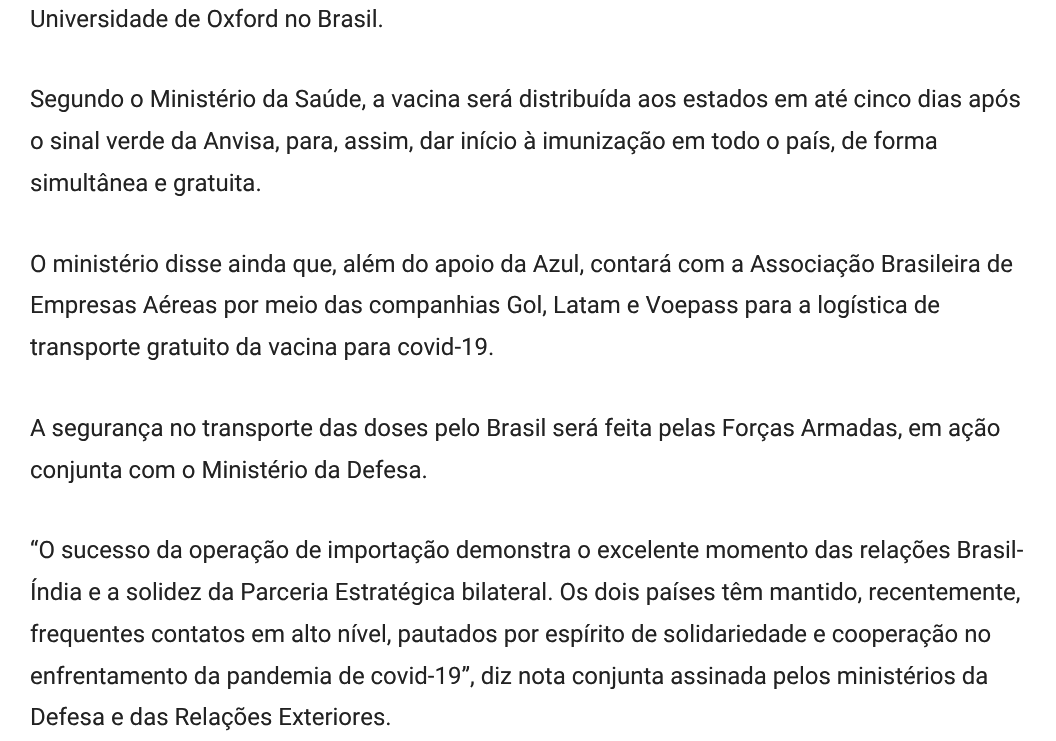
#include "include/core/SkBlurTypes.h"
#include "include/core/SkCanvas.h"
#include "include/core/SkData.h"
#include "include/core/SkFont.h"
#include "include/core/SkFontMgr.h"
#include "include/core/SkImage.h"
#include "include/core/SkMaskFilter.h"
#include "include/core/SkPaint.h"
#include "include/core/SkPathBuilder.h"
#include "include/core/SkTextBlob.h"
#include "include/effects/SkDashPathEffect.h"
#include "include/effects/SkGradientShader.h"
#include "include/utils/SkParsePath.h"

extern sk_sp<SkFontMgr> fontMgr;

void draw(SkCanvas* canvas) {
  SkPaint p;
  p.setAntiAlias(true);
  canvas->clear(SK_ColorWHITE);
  SkFont font1(fontMgr->matchFamilyStyle("Roboto", SkFontStyle::Normal()), 24);
  font1.setSubpixel(true);
  p.setColor(SkColorSetRGB(34, 34, 34));
  canvas->drawString("Universidade de Oxford no Brasil.", 30, 27, font1, p);
  canvas->drawString("Segundo o Ministério da Saúde, a vacina será distribuída aos estados em até cinco dias após", 30, 107, font1, p);
  canvas->drawString("o sinal verde da Anvisa, para, assim, dar início à imunização em todo o país, de forma", 30, 149, font1, p);
  canvas->drawString("simultânea e gratuita.", 30, 191, font1, p);
  canvas->drawString("O ministério disse ainda que, além do apoio da Azul, contará com a Associação Brasileira de", 30, 272, font1, p);
  canvas->drawString("Empresas Aéreas por meio das companhias Gol, Latam e Voepass para a logística de", 30, 313, font1, p);
  canvas->drawString("transporte gratuito da vacina para covid-19.", 30, 355, font1, p);
  canvas->drawString("A segurança no transporte das doses pelo Brasil será feita pelas Forças Armadas, em ação", 30, 436, font1, p);
  canvas->drawString("conjunta com o Ministério da Defesa.", 30, 478, font1, p);
  canvas->drawString("“O sucesso da operação de importação demonstra o excelente momento das relações Brasil-", 30, 558, font1, p);
  canvas->drawString("Índia e a solidez da Parceria Estratégica bilateral. Os dois países têm mantido, recentemente,", 30, 600, font1, p);
  canvas->drawString("frequentes contatos em alto nível, pautados por espírito de solidariedade e cooperação no", 30, 642, font1, p);
  canvas->drawString("enfrentamento da pandemia de covid-19”, diz nota conjunta assinada pelos ministérios da", 30, 684, font1, p);
  canvas->drawString("Defesa e das Relações Exteriores.", 30, 725, font1, p);
}
